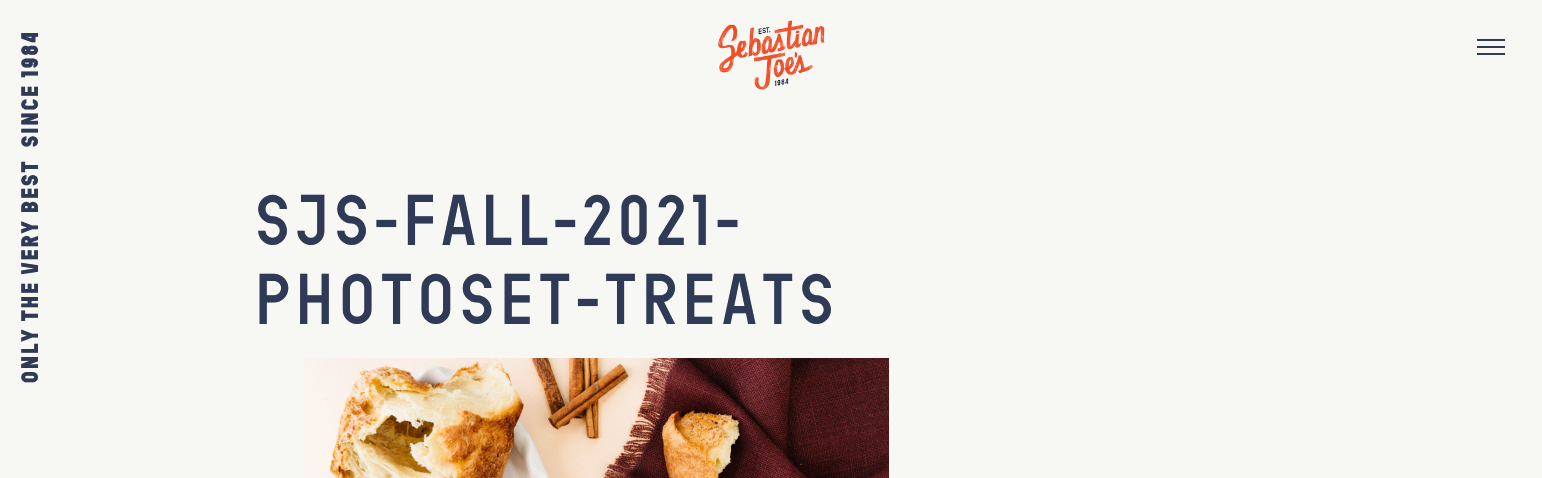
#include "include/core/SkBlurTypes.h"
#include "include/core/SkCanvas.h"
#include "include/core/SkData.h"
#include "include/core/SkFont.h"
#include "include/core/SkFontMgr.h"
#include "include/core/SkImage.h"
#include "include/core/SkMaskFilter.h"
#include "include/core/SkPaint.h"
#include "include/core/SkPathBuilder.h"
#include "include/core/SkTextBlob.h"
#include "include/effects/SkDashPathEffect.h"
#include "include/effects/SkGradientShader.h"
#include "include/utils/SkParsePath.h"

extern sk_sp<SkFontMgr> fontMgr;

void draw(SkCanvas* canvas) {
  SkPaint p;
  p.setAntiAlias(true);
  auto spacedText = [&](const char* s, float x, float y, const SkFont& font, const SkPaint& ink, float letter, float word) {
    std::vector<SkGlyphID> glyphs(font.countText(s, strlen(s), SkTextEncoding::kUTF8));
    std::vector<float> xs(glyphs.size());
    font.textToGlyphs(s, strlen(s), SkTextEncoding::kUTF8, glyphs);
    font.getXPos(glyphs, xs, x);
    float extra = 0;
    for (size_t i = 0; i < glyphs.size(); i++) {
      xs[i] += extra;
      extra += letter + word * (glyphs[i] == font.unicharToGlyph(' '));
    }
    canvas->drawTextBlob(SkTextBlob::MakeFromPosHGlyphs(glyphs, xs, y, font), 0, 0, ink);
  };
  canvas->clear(SkColorSetRGB(247, 247, 243));
  canvas->drawImageRect(SkImages::DeferredFromEncodedData(SkData::MakeFromFileName("images/1.png")), SkRect::MakeLTRB(718, 20, 825, 90), SkSamplingOptions());
  p.setColor(SkColorSetRGB(47, 58, 86));
  canvas->drawRect(SkRect::MakeLTRB(1477, 46, 1505, 48), p);
  canvas->drawRect(SkRect::MakeLTRB(1477, 39, 1505, 41), p);
  canvas->drawRect(SkRect::MakeLTRB(1477, 53, 1505, 55), p);
  canvas->drawImageRect(SkImages::DeferredFromEncodedData(SkData::MakeFromFileName("images/2.png")), SkRect::MakeLTRB(304, 358, 889, 478), SkSamplingOptions());
  SkFont font1(fontMgr->matchFamilyStyle("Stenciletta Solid", SkFontStyle::Bold()), 24);
  font1.setSubpixel(true);
  canvas->save();
  canvas->rotate(-90, 38, 147);
  spacedText("SINCE 1984", 38, 147, font1, p, 2.4f, 0);
  canvas->restore();
  canvas->save();
  canvas->rotate(-90, 38, 383);
  spacedText("ONLY THE VERY BEST", 38, 383, font1, p, 2.4f, 0);
  canvas->restore();
  SkFont font2(fontMgr->matchFamilyStyle("Stenciletta Solid", SkFontStyle::Normal()), 72);
  font2.setSubpixel(true);
  spacedText("SJS-FALL-2021-", 256, 245, font2, p, 7.25f, 0);
  spacedText("PHOTOSET-TREATS", 256, 324, font2, p, 7.25f, 0);
}
